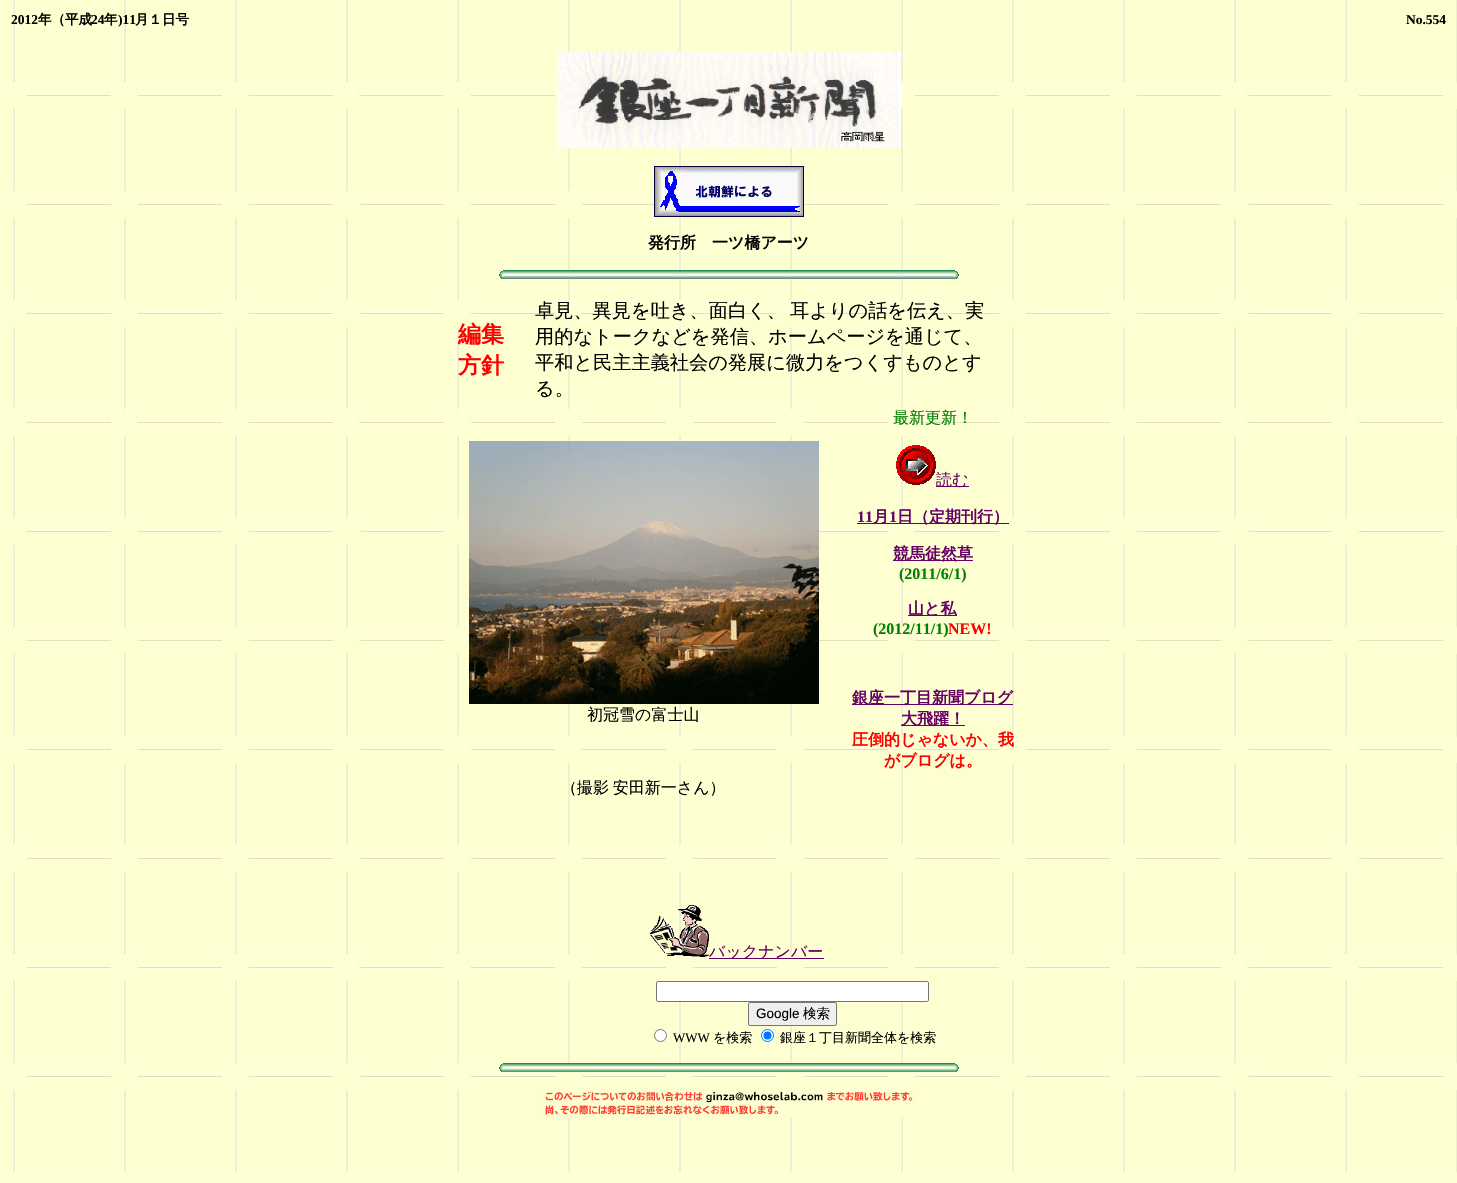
#include "include/core/SkBlurTypes.h"
#include "include/core/SkCanvas.h"
#include "include/core/SkData.h"
#include "include/core/SkFont.h"
#include "include/core/SkFontMgr.h"
#include "include/core/SkImage.h"
#include "include/core/SkMaskFilter.h"
#include "include/core/SkPaint.h"
#include "include/core/SkPathBuilder.h"
#include "include/core/SkTextBlob.h"
#include "include/effects/SkDashPathEffect.h"
#include "include/effects/SkGradientShader.h"
#include "include/utils/SkParsePath.h"

extern sk_sp<SkFontMgr> fontMgr;

void draw(SkCanvas* canvas) {
  SkPaint p;
  p.setAntiAlias(true);
  auto spacedText = [&](const char* s, float x, float y, const SkFont& font, const SkPaint& ink, float letter, float word) {
    std::vector<SkGlyphID> glyphs(font.countText(s, strlen(s), SkTextEncoding::kUTF8));
    std::vector<float> xs(glyphs.size());
    font.textToGlyphs(s, strlen(s), SkTextEncoding::kUTF8, glyphs);
    font.getXPos(glyphs, xs, x);
    float extra = 0;
    for (size_t i = 0; i < glyphs.size(); i++) {
      xs[i] += extra;
      extra += letter + word * (glyphs[i] == font.unicharToGlyph(' '));
    }
    canvas->drawTextBlob(SkTextBlob::MakeFromPosHGlyphs(glyphs, xs, y, font), 0, 0, ink);
  };
  canvas->clear(SK_ColorWHITE);
  canvas->drawImageRect(SkImages::DeferredFromEncodedData(SkData::MakeFromFileName("images/1.png")), SkRect::MakeLTRB(0, 0, 1457, 1183), SkSamplingOptions());
  canvas->drawImageRect(SkImages::DeferredFromEncodedData(SkData::MakeFromFileName("images/2.png")), SkRect::MakeLTRB(557, 52, 901, 148), SkSamplingOptions());
  canvas->drawImageRect(SkImages::DeferredFromEncodedData(SkData::MakeFromFileName("images/3.png")), SkRect::MakeLTRB(654, 166, 804, 217), SkSamplingOptions());
  canvas->drawImageRect(SkImages::DeferredFromEncodedData(SkData::MakeFromFileName("images/4.png")), SkRect::MakeLTRB(499, 270, 959, 279), SkSamplingOptions());
  canvas->drawImageRect(SkImages::DeferredFromEncodedData(SkData::MakeFromFileName("images/5.png")), SkRect::MakeLTRB(469, 441, 819, 704), SkSamplingOptions());
  canvas->drawImageRect(SkImages::DeferredFromEncodedData(SkData::MakeFromFileName("images/6.png")), SkRect::MakeLTRB(896, 445, 936, 485), SkSamplingOptions());
  p.setColor(SkColorSetRGB(102, 0, 102));
  canvas->drawRect(SkRect::MakeLTRB(936, 486, 969, 487), p);
  canvas->drawRect(SkRect::MakeLTRB(857, 523, 1009, 524), p);
  canvas->drawRect(SkRect::MakeLTRB(893, 560, 973, 561), p);
  canvas->drawRect(SkRect::MakeLTRB(908, 615, 957, 616), p);
  canvas->drawRect(SkRect::MakeLTRB(852, 704, 1013, 705), p);
  canvas->drawRect(SkRect::MakeLTRB(901, 725, 965, 726), p);
  canvas->drawImageRect(SkImages::DeferredFromEncodedData(SkData::MakeFromFileName("images/7.png")), SkRect::MakeLTRB(649, 905, 709, 957), SkSamplingOptions());
  canvas->drawRect(SkRect::MakeLTRB(709, 958, 824, 959), p);
  p.setColor(SK_ColorWHITE);
  canvas->drawRoundRect(SkRect::MakeLTRB(656.5f, 981.5f, 928.5f, 1001.5f), 1.5f, 1.5f, p);
  p.setStyle(SkPaint::kStroke_Style);
  p.setStrokeWidth(1);
  p.setColor(SkColorSetRGB(118, 118, 118));
  canvas->drawRoundRect(SkRect::MakeLTRB(656.5f, 981.5f, 928.5f, 1001.5f), 1.5f, 1.5f, p);
  p.setStyle(SkPaint::kFill_Style);
  p.setColor(SkColorSetRGB(239, 239, 239));
  canvas->drawRoundRect(SkRect::MakeLTRB(748.5f, 1002.5f, 836.5f, 1025.5f), 1.5f, 1.5f, p);
  p.setStyle(SkPaint::kStroke_Style);
  p.setColor(SkColorSetRGB(118, 118, 118));
  canvas->drawRoundRect(SkRect::MakeLTRB(748.5f, 1002.5f, 836.5f, 1025.5f), 1.5f, 1.5f, p);
  p.setStyle(SkPaint::kFill_Style);
  p.setColor(SK_ColorWHITE);
  canvas->drawCircle(660.5f, 1035.5f, 6, p);
  p.setStyle(SkPaint::kStroke_Style);
  p.setColor(SkColorSetRGB(118, 118, 118));
  canvas->drawCircle(660.5f, 1035.5f, 6, p);
  p.setStyle(SkPaint::kFill_Style);
  p.setColor(SK_ColorWHITE);
  canvas->drawCircle(767.5f, 1035.5f, 6, p);
  p.setStyle(SkPaint::kStroke_Style);
  p.setColor(SkColorSetRGB(0, 117, 255));
  canvas->drawCircle(767.5f, 1035.5f, 6, p);
  p.setStyle(SkPaint::kFill_Style);
  canvas->drawCircle(767.5f, 1035.5f, 4, p);
  canvas->drawImageRect(SkImages::DeferredFromEncodedData(SkData::MakeFromFileName("images/8.png")), SkRect::MakeLTRB(499, 1063, 959, 1072), SkSamplingOptions());
  canvas->drawImageRect(SkImages::DeferredFromEncodedData(SkData::MakeFromFileName("images/9.png")), SkRect::MakeLTRB(541, 1088, 917, 1118), SkSamplingOptions());
  SkFont font1(fontMgr->matchFamilyStyle("Liberation Serif", SkFontStyle::Bold()), 13.5f);
  font1.setSubpixel(true);
  p.setColor(SK_ColorBLACK);
  canvas->drawString("2012", 11, 24, font1, p);
  SkFont font2(fontMgr->matchFamilyStyle("WenQuanYi Zen Hei", SkFontStyle::Bold()), 13.5f);
  font2.setSubpixel(true);
  canvas->drawString("年（平成", 38, 24, font2, p);
  canvas->drawString("24", 91, 24, font1, p);
  canvas->drawString("年", 104, 24, font2, p);
  canvas->drawString(")11", 118, 24, font1, p);
  canvas->drawString("月１日号", 135, 24, font2, p);
  canvas->drawString("No.554", 1406, 24, font1, p);
  SkFont font3(fontMgr->matchFamilyStyle("WenQuanYi Zen Hei", SkFontStyle::Bold()), 16);
  font3.setSubpixel(true);
  canvas->drawString("発行所　一ツ橋アーツ", 648, 248, font3, p);
  SkFont font4(fontMgr->matchFamilyStyle("WenQuanYi Zen Hei", SkFontStyle::Bold()), 23);
  font4.setSubpixel(true);
  p.setColor(SkColorSetRGB(255, 0, 0));
  canvas->drawString("編集", 458, 342, font4, p);
  canvas->drawString("方針", 458, 373, font4, p);
  SkFont font5(fontMgr->matchFamilyStyle("WenQuanYi Zen Hei", SkFontStyle(500, SkFontStyle::kNormal_Width, SkFontStyle::kUpright_Slant)), 19.2f);
  font5.setSubpixel(true);
  p.setColor(SK_ColorBLACK);
  canvas->drawString("卓見、異見を吐き、面白く、", 535, 317, font5, p);
  canvas->drawString("耳よりの話を伝え、実", 790, 317, font5, p);
  canvas->drawString("用的なトークなどを発信、ホームページを通じて、", 535, 343, font5, p);
  canvas->drawString("平和と民主主義社会の発展に微力をつくすものとす", 535, 369, font5, p);
  canvas->drawString("る。", 535, 395, font5, p);
  SkFont font6(fontMgr->matchFamilyStyle("WenQuanYi Zen Hei", SkFontStyle(500, SkFontStyle::kNormal_Width, SkFontStyle::kUpright_Slant)), 16);
  font6.setSubpixel(true);
  canvas->drawString("初冠雪の富士山", 587, 720, font6, p);
  spacedText("（撮影 安田新一さん）", 561, 793, font6, p, 0, -1);
  p.setColor(SkColorSetRGB(0, 128, 0));
  canvas->drawString("最新更新！", 893, 423, font6, p);
  p.setColor(SkColorSetRGB(102, 0, 102));
  canvas->drawString("読む", 936, 485, font6, p);
  SkFont font7(fontMgr->matchFamilyStyle("Liberation Serif", SkFontStyle::Bold()), 16);
  font7.setSubpixel(true);
  canvas->drawString("11", 857, 522, font7, p);
  canvas->drawString("月", 873, 522, font3, p);
  canvas->drawString("1", 889, 522, font7, p);
  canvas->drawString("日（定期刊行）", 897, 522, font3, p);
  canvas->drawString("競馬徒然草", 893, 559, font3, p);
  p.setColor(SkColorSetRGB(0, 128, 0));
  canvas->drawString("(2011/6/1)", 899, 579, font7, p);
  p.setColor(SkColorSetRGB(102, 0, 102));
  canvas->drawString("山と私", 908, 614, font3, p);
  p.setColor(SkColorSetRGB(0, 128, 0));
  canvas->drawString("(2012/11/1)", 873, 634, font7, p);
  p.setColor(SkColorSetRGB(255, 0, 0));
  canvas->drawString("NEW!", 948, 634, font7, p);
  p.setColor(SkColorSetRGB(102, 0, 102));
  canvas->drawString("銀座一丁目新聞ブログ", 852, 703, font3, p);
  canvas->drawString("大飛躍！", 901, 724, font3, p);
  p.setColor(SkColorSetRGB(255, 0, 0));
  canvas->drawString("圧倒的じゃないか、我", 852, 745, font3, p);
  canvas->drawString("がブログは。", 884, 766, font3, p);
  p.setColor(SkColorSetRGB(102, 0, 102));
  canvas->drawString("バックナンバー", 709, 957, font6, p);
  SkFont font8(fontMgr->matchFamilyStyle("Liberation Sans", SkFontStyle::Normal()), 13.5f);
  font8.setSubpixel(true);
  p.setColor(SK_ColorBLACK);
  canvas->drawString("Google", 756, 1018, font8, p);
  SkFont font9(fontMgr->matchFamilyStyle("WenQuanYi Zen Hei", SkFontStyle(500, SkFontStyle::kNormal_Width, SkFontStyle::kUpright_Slant)), 13.5f);
  font9.setSubpixel(true);
  canvas->drawString("検索", 803, 1018, font9, p);
  SkFont font10(fontMgr->matchFamilyStyle("Liberation Serif", SkFontStyle::Normal()), 13);
  font10.setSubpixel(true);
  canvas->drawString("WWW", 673, 1042, font10, p);
  SkFont font11(fontMgr->matchFamilyStyle("WenQuanYi Zen Hei", SkFontStyle(500, SkFontStyle::kNormal_Width, SkFontStyle::kUpright_Slant)), 13);
  font11.setSubpixel(true);
  canvas->drawString("を検索", 713, 1042, font11, p);
  canvas->drawString("銀座１丁目新聞全体を検索", 780, 1042, font11, p);
}
